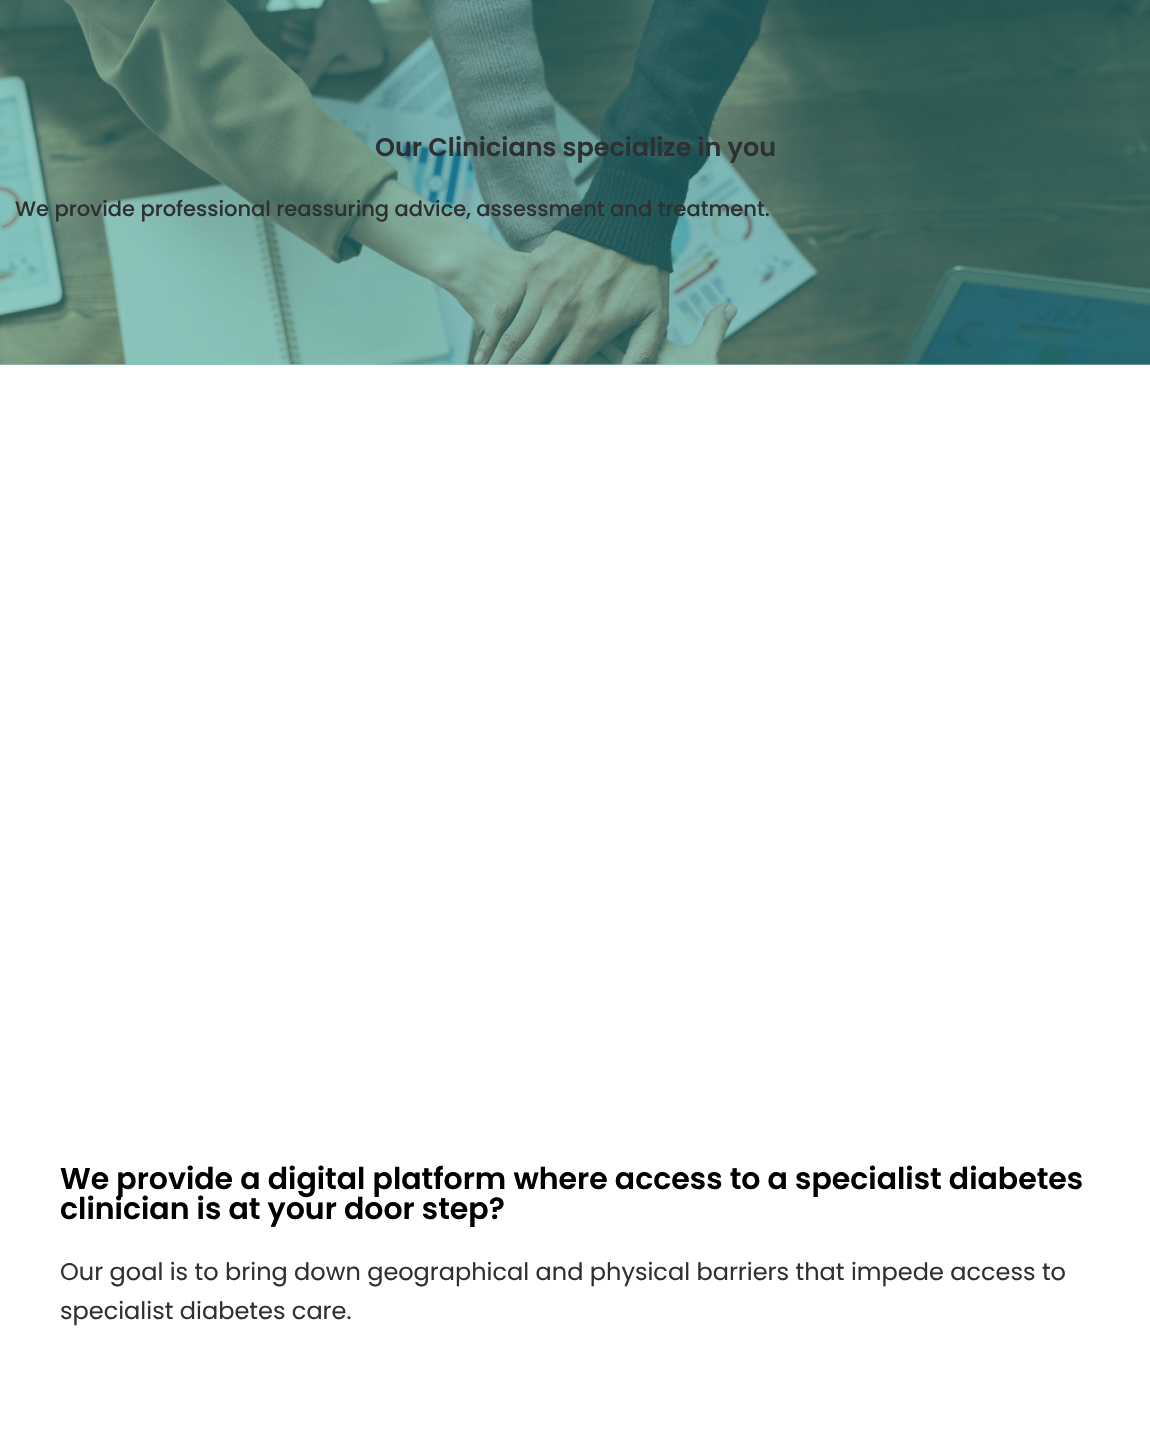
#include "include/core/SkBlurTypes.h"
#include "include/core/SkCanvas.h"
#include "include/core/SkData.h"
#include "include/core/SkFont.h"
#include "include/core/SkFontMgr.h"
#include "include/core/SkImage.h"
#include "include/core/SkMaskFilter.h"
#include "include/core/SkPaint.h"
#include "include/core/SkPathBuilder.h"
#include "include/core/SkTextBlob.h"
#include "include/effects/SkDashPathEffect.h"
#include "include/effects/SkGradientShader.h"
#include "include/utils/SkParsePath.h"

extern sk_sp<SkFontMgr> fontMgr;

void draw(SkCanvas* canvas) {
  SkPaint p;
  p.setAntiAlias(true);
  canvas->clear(SK_ColorWHITE);
  p.setColor(SkColorSetRGB(151, 208, 204));
  canvas->drawRect(SkRect::MakeLTRB(0, 364, 1150, 365), p);
  canvas->drawImageRect(SkImages::DeferredFromEncodedData(SkData::MakeFromFileName("images/1.png")), SkRect::MakeLTRB(0, 0, 1150, 365), SkSamplingOptions());
  SkFont font1(fontMgr->matchFamilyStyle("Poppins", SkFontStyle(600, SkFontStyle::kNormal_Width, SkFontStyle::kUpright_Slant)), 25.5f);
  font1.setSubpixel(true);
  p.setColor(SkColorSetRGB(46, 48, 49));
  canvas->drawString("Our Clinicians specialize in you", 375, 156, font1, p);
  SkFont font2(fontMgr->matchFamilyStyle("Poppins", SkFontStyle(500, SkFontStyle::kNormal_Width, SkFontStyle::kUpright_Slant)), 21);
  font2.setSubpixel(true);
  canvas->drawString("We provide professional reassuring advice, assessment and treatment.", 15, 216, font2, p);
  SkFont font3(fontMgr->matchFamilyStyle("Poppins", SkFontStyle(600, SkFontStyle::kNormal_Width, SkFontStyle::kUpright_Slant)), 30);
  font3.setSubpixel(true);
  p.setColor(SK_ColorBLACK);
  canvas->drawString("We provide a digital platform where access to a specialist diabetes", 60, 1189, font3, p);
  canvas->drawString("clinician is at your door step?", 60, 1219, font3, p);
  SkFont font4(fontMgr->matchFamilyStyle("Poppins", SkFontStyle::Normal()), 24);
  font4.setSubpixel(true);
  p.setColor(SkColorSetRGB(46, 48, 49));
  canvas->drawString("Our goal is to bring down geographical and physical barriers that impede access to", 60, 1280, font4, p);
  canvas->drawString("specialist diabetes care.", 60, 1319, font4, p);
}
